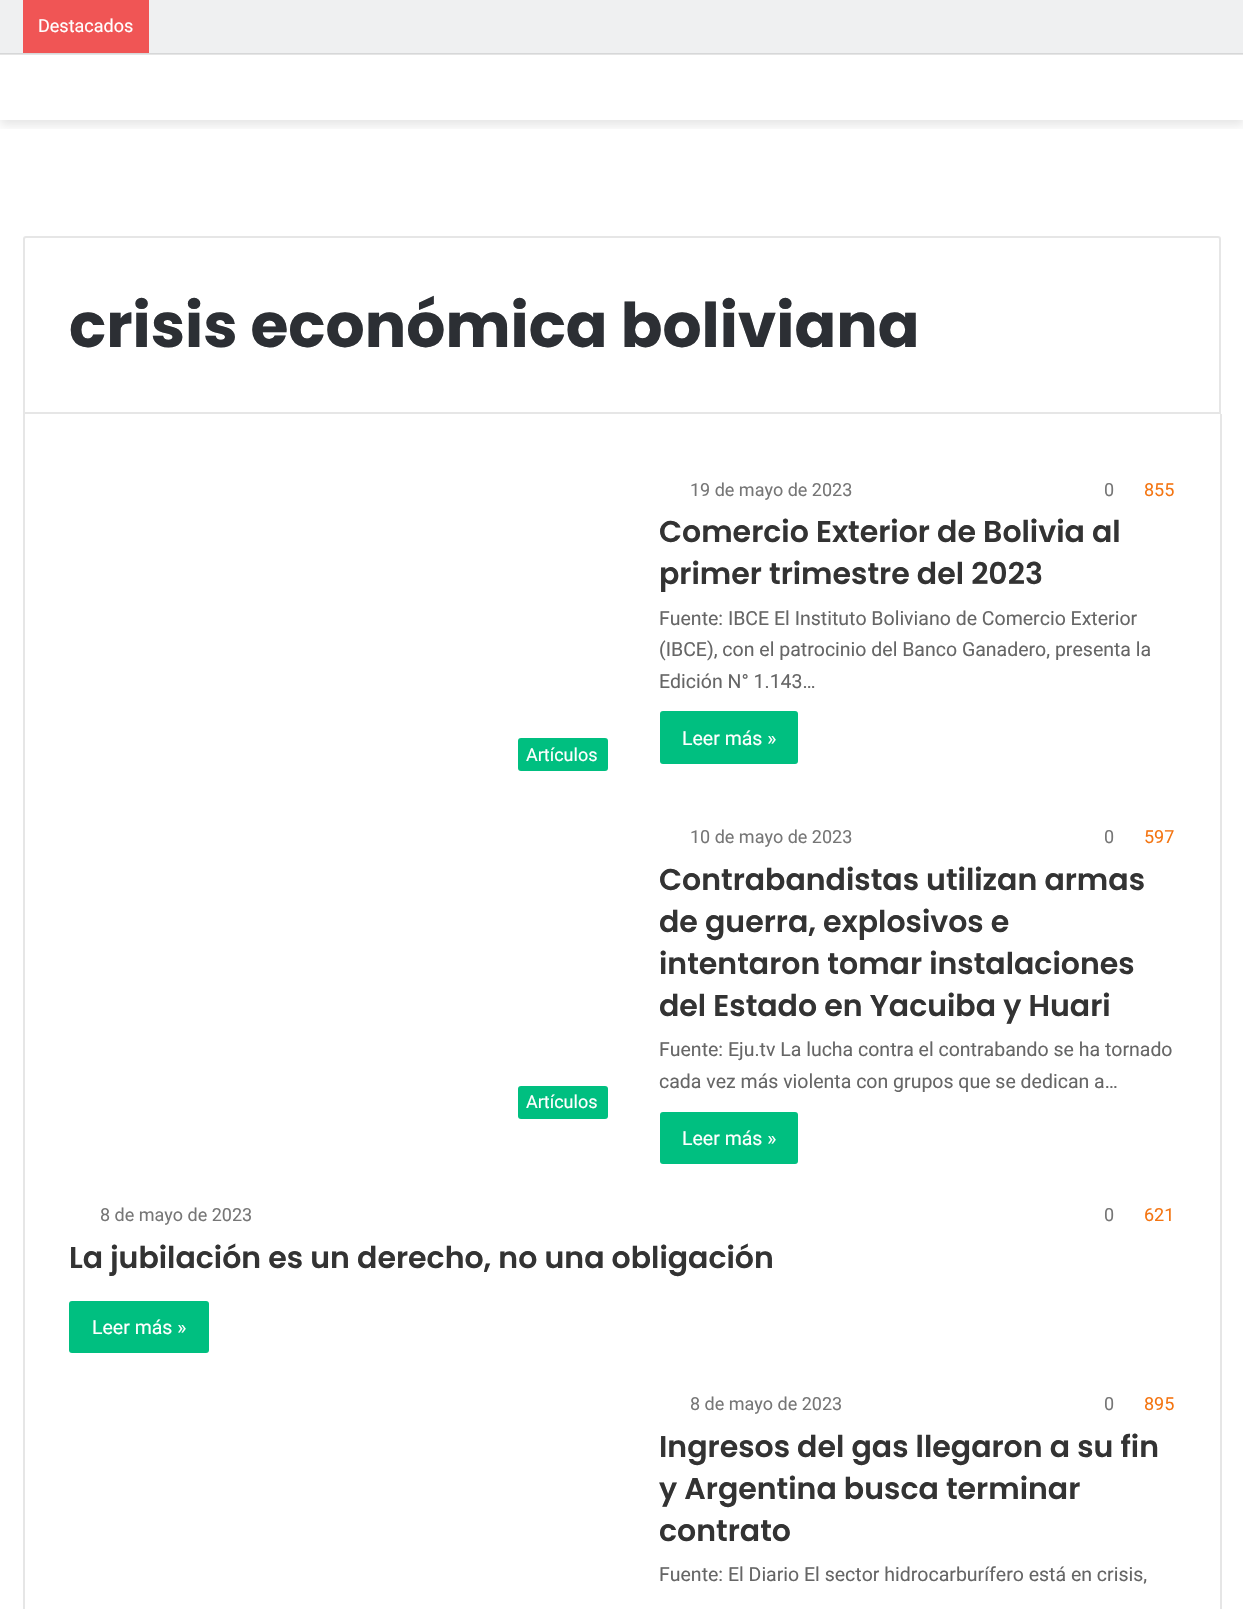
#include "include/core/SkBlurTypes.h"
#include "include/core/SkCanvas.h"
#include "include/core/SkData.h"
#include "include/core/SkFont.h"
#include "include/core/SkFontMgr.h"
#include "include/core/SkImage.h"
#include "include/core/SkMaskFilter.h"
#include "include/core/SkPaint.h"
#include "include/core/SkPathBuilder.h"
#include "include/core/SkTextBlob.h"
#include "include/effects/SkDashPathEffect.h"
#include "include/effects/SkGradientShader.h"
#include "include/utils/SkParsePath.h"

extern sk_sp<SkFontMgr> fontMgr;

void draw(SkCanvas* canvas) {
  SkPaint p;
  p.setAntiAlias(true);
  canvas->clear(SK_ColorWHITE);
  canvas->save();
  canvas->clipRect(SkRect::MakeLTRB(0, 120, 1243, 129));
  p.setColor(SkColorSetARGB(26, 0, 0, 0));
  p.setMaskFilter(SkMaskFilter::MakeBlur(kNormal_SkBlurStyle, 5));
  canvas->drawRect(SkRect::MakeLTRB(0, 59, 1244, 125), p);
  p.setMaskFilter(nullptr);
  canvas->restore();
  p.setColor(SkColorSetRGB(239, 240, 241));
  canvas->drawRect(SkRect::MakeLTRB(0, 0, 1243, 54), p);
  p.setColor(SkColorSetARGB(26, 0, 0, 0));
  canvas->drawRect(SkRect::MakeLTRB(0, 53, 1243, 55), p);
  p.setColor(SkColorSetRGB(240, 85, 85));
  canvas->drawRect(SkRect::MakeLTRB(23, 0, 149, 53), p);
  p.setStyle(SkPaint::kStroke_Style);
  p.setStrokeWidth(2);
  p.setColor(SkColorSetRGB(230, 230, 230));
  canvas->drawPath(SkPathBuilder().moveTo(26, 237).lineTo(1218, 237).cubicTo(1219, 237, 1220, 238, 1220, 239).lineTo(1220, 413).lineTo(24, 413).lineTo(24, 239).cubicTo(24, 238, 25, 237, 26, 237).close().detach(), p);
  p.setStyle(SkPaint::kFill_Style);
  canvas->drawRect(SkRect::MakeLTRB(1220, 414, 1222, 1609), p);
  canvas->drawRect(SkRect::MakeLTRB(23, 414, 25, 1609), p);
  p.setColor(SkColorSetRGB(0, 191, 128));
  canvas->drawRoundRect(SkRect::MakeLTRB(660, 711, 798, 764), 3, 3, p);
  canvas->drawRoundRect(SkRect::MakeLTRB(518, 738, 608, 771), 3, 3, p);
  canvas->drawRoundRect(SkRect::MakeLTRB(518, 1086, 608, 1119), 3, 3, p);
  canvas->drawRoundRect(SkRect::MakeLTRB(660, 1112, 798, 1164), 3, 3, p);
  canvas->drawRoundRect(SkRect::MakeLTRB(69, 1301, 209, 1353), 3, 3, p);
  SkFont font1(fontMgr->matchFamilyStyle("Roboto", SkFontStyle::Normal()), 18);
  font1.setSubpixel(true);
  p.setColor(SK_ColorWHITE);
  canvas->drawString("Destacados", 38, 32, font1, p);
  SkFont font2(fontMgr->matchFamilyStyle("Poppins", SkFontStyle::Bold()), 61.5f);
  font2.setSubpixel(true);
  p.setColor(SkColorSetRGB(44, 47, 52));
  canvas->drawString("crisis económica boliviana", 69, 347, font2, p);
  p.setColor(SkColorSetRGB(118, 118, 118));
  canvas->drawString("19 de mayo de 2023", 690, 496, font1, p);
  canvas->drawString("0", 1104, 496, font1, p);
  p.setColor(SkColorSetRGB(244, 117, 18));
  canvas->drawString("855", 1144, 496, font1, p);
  SkFont font3(fontMgr->matchFamilyStyle("Poppins", SkFontStyle(600, SkFontStyle::kNormal_Width, SkFontStyle::kUpright_Slant)), 30);
  font3.setSubpixel(true);
  p.setColor(SkColorSetRGB(51, 51, 51));
  canvas->drawString("Comercio Exterior de Bolivia al", 659, 542, font3, p);
  canvas->drawString("primer trimestre del 2023", 659, 584, font3, p);
  SkFont font4(fontMgr->matchFamilyStyle("Roboto", SkFontStyle::Normal()), 19.5f);
  font4.setSubpixel(true);
  p.setColor(SkColorSetRGB(102, 102, 102));
  canvas->drawString("Fuente: IBCE El Instituto Boliviano de Comercio Exterior", 659, 625, font4, p);
  canvas->drawString("(IBCE), con el patrocinio del Banco Ganadero, presenta la", 659, 656, font4, p);
  canvas->drawString("Edición N° 1.143…", 659, 688, font4, p);
  p.setColor(SK_ColorWHITE);
  canvas->drawString("Leer más »", 682, 745, font4, p);
  canvas->drawString("Artículos", 526, 761, font1, p);
  canvas->drawString("Artículos", 526, 1108, font1, p);
  p.setColor(SkColorSetRGB(118, 118, 118));
  canvas->drawString("10 de mayo de 2023", 690, 843, font1, p);
  canvas->drawString("0", 1104, 843, font1, p);
  p.setColor(SkColorSetRGB(244, 117, 18));
  canvas->drawString("597", 1144, 843, font1, p);
  p.setColor(SkColorSetRGB(51, 51, 51));
  canvas->drawString("Contrabandistas utilizan armas", 659, 890, font3, p);
  canvas->drawString("de guerra, explosivos e", 659, 932, font3, p);
  canvas->drawString("intentaron tomar instalaciones", 659, 974, font3, p);
  canvas->drawString("del Estado en Yacuiba y Huari", 659, 1016, font3, p);
  p.setColor(SkColorSetRGB(102, 102, 102));
  canvas->drawString("Fuente: Eju.tv La lucha contra el contrabando se ha tornado", 659, 1056, font4, p);
  canvas->drawString("cada vez más violenta con grupos que se dedican a…", 659, 1088, font4, p);
  p.setColor(SK_ColorWHITE);
  canvas->drawString("Leer más »", 682, 1145, font4, p);
  p.setColor(SkColorSetRGB(118, 118, 118));
  canvas->drawString("8 de mayo de 2023", 100, 1221, font1, p);
  canvas->drawString("0", 1104, 1221, font1, p);
  p.setColor(SkColorSetRGB(244, 117, 18));
  canvas->drawString("621", 1144, 1221, font1, p);
  p.setColor(SkColorSetRGB(51, 51, 51));
  canvas->drawString("La jubilación es un derecho, no una obligación", 69, 1268, font3, p);
  p.setColor(SK_ColorWHITE);
  canvas->drawString("Leer más »", 92, 1334, font4, p);
  p.setColor(SkColorSetRGB(118, 118, 118));
  canvas->drawString("8 de mayo de 2023", 690, 1410, font1, p);
  canvas->drawString("0", 1104, 1410, font1, p);
  p.setColor(SkColorSetRGB(244, 117, 18));
  canvas->drawString("895", 1144, 1410, font1, p);
  p.setColor(SkColorSetRGB(51, 51, 51));
  canvas->drawString("Ingresos del gas llegaron a su fin", 659, 1457, font3, p);
  canvas->drawString("y Argentina busca terminar", 659, 1499, font3, p);
  canvas->drawString("contrato", 659, 1541, font3, p);
  p.setColor(SkColorSetRGB(102, 102, 102));
  canvas->drawString("Fuente: El Diario El sector hidrocarburífero está en crisis,", 659, 1581, font4, p);
}
